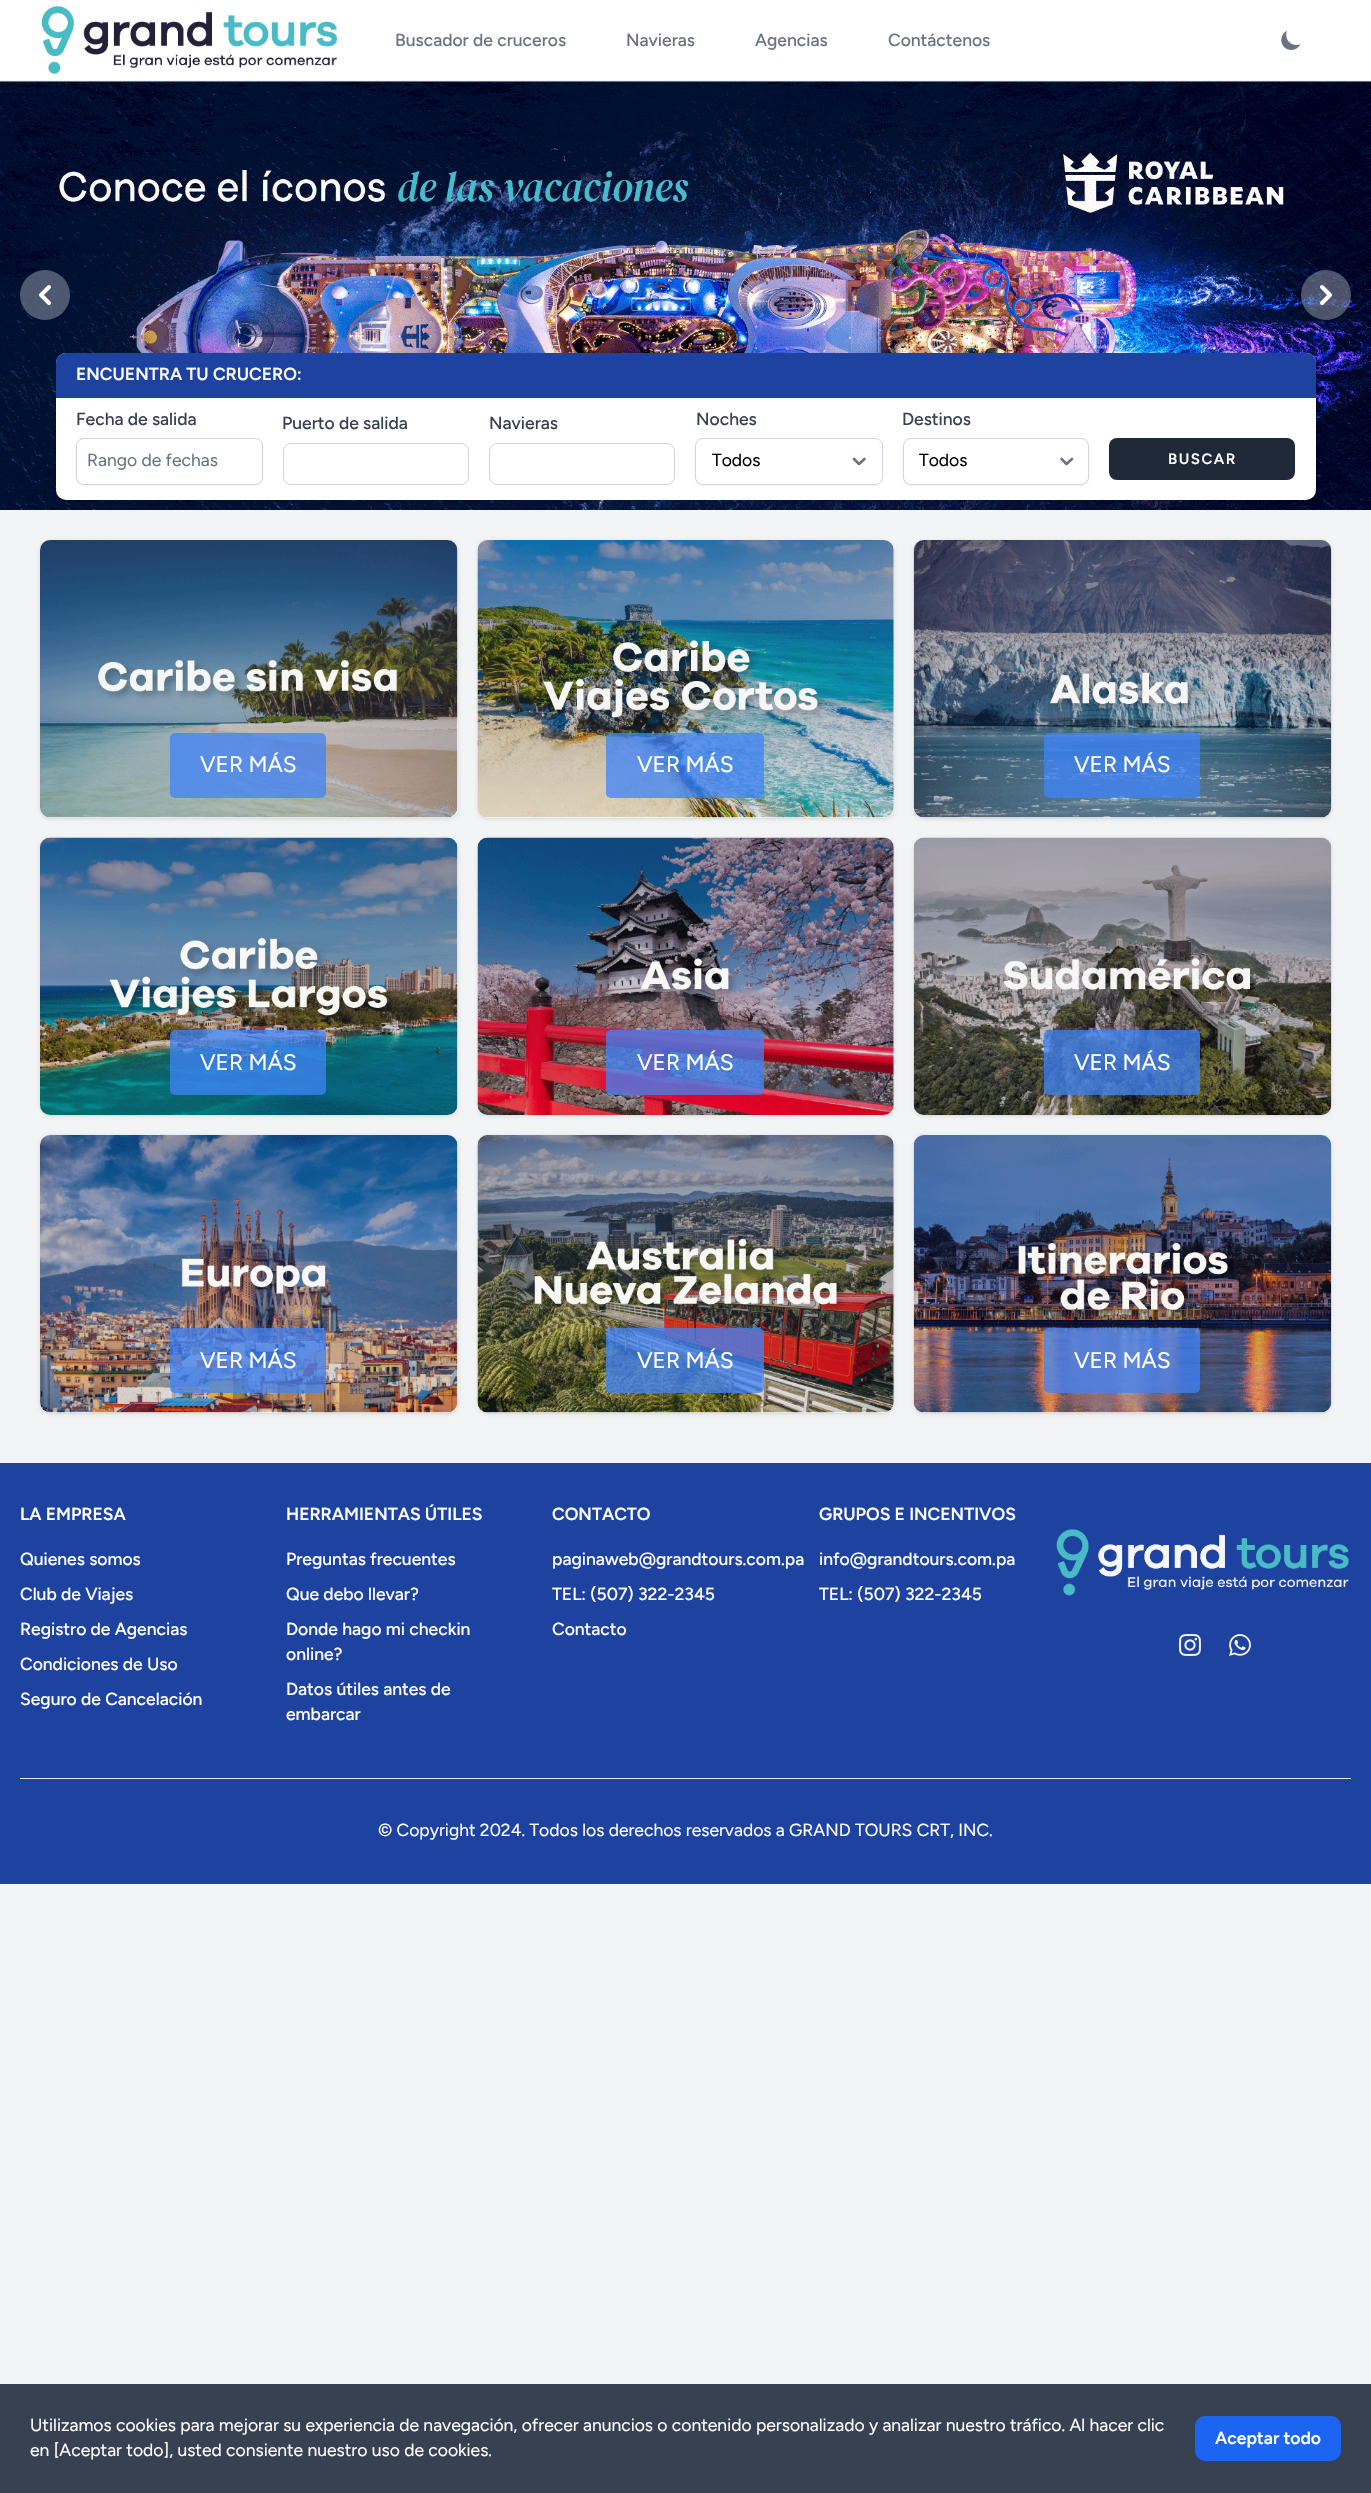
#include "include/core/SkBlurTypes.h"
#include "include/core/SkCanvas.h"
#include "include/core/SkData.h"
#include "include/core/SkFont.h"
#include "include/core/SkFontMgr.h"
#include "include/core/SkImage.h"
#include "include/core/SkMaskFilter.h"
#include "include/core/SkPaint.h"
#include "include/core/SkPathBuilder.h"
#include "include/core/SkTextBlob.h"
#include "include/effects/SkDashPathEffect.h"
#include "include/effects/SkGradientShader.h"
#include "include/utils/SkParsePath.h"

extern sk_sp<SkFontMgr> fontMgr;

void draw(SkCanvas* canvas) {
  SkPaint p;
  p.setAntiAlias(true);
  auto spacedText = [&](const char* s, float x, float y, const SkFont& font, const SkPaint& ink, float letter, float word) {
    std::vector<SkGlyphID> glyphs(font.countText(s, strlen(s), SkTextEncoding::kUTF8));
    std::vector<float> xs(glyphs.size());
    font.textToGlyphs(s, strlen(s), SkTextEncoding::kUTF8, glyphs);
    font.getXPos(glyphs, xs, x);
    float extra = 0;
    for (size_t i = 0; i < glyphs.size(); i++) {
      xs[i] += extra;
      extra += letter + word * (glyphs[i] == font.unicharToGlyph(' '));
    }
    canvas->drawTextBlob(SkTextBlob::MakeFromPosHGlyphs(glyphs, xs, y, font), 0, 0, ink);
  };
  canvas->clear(SkColorSetRGB(243, 244, 246));
  p.setColor(SK_ColorWHITE);
  canvas->drawRect(SkRect::MakeLTRB(0, 0, 1371, 80), p);
  canvas->drawImageRect(SkImages::DeferredFromEncodedData(SkData::MakeFromFileName("images/1.png")), SkRect::MakeLTRB(41, 6, 338, 74), SkSamplingOptions());
  canvas->drawImageRect(SkImages::DeferredFromEncodedData(SkData::MakeFromFileName("images/2.png")), SkRect::MakeLTRB(1281, 31, 1301, 50), SkSamplingOptions());
  canvas->drawImageRect(SkImages::DeferredFromEncodedData(SkData::MakeFromFileName("images/3.png")), SkRect::MakeLTRB(0, 81, 1371, 510), SkSamplingOptions());
  p.setColor(SkColorSetARGB(77, 255, 255, 255));
  canvas->drawCircle(45, 295, 25, p);
  p.setStyle(SkPaint::kStroke_Style);
  p.setStrokeWidth(4);
  p.setStrokeCap(SkPaint::kRound_Cap);
  p.setStrokeJoin(SkPaint::kRound_Join);
  p.setColor(SK_ColorWHITE);
  canvas->drawPath(SkPathBuilder().moveTo(49, 287).lineTo(41, 295).lineTo(49, 303).detach(), p);
  p.setStyle(SkPaint::kFill_Style);
  p.setColor(SkColorSetARGB(77, 255, 255, 255));
  canvas->drawCircle(1326, 295, 25, p);
  p.setStyle(SkPaint::kStroke_Style);
  p.setColor(SK_ColorWHITE);
  canvas->drawPath(SkPathBuilder().moveTo(1322, 303).lineTo(1330, 295).lineTo(1322, 287).detach(), p);
  p.setStyle(SkPaint::kFill_Style);
  p.setColor(SkColorSetARGB(26, 0, 0, 0));
  p.setMaskFilter(SkMaskFilter::MakeBlur(kNormal_SkBlurStyle, 1));
  canvas->drawRoundRect(SkRect::MakeLTRB(58, 355, 1315, 500), 9, 9, p);
  p.setMaskFilter(nullptr);
  p.setMaskFilter(SkMaskFilter::MakeBlur(kNormal_SkBlurStyle, 2));
  canvas->drawRoundRect(SkRect::MakeLTRB(56, 354, 1316, 501), 10, 10, p);
  p.setMaskFilter(nullptr);
  p.setColor(SK_ColorWHITE);
  canvas->drawRoundRect(SkRect::MakeLTRB(56, 353, 1316, 500), 10, 10, p);
  p.setColor(SkColorSetRGB(30, 66, 159));
  canvas->drawPath(SkPathBuilder().moveTo(66, 353).lineTo(1306, 353).cubicTo(1311.5f, 353, 1316, 357.5f, 1316, 363).lineTo(1316, 398).lineTo(56, 398).lineTo(56, 363).cubicTo(56, 357.5f, 60.5f, 353, 66, 353).close().detach(), p);
  p.setColor(SkColorSetARGB(13, 0, 0, 0));
  p.setMaskFilter(SkMaskFilter::MakeBlur(kNormal_SkBlurStyle, 1));
  canvas->drawRoundRect(SkRect::MakeLTRB(76, 439, 263, 486), 8, 8, p);
  p.setMaskFilter(nullptr);
  p.setColor(SK_ColorWHITE);
  canvas->drawRoundRect(SkRect::MakeLTRB(76.5f, 438.5f, 262.5f, 484.5f), 7.5f, 7.5f, p);
  p.setStyle(SkPaint::kStroke_Style);
  p.setStrokeWidth(1);
  p.setStrokeCap(SkPaint::kButt_Cap);
  p.setStrokeJoin(SkPaint::kMiter_Join);
  p.setColor(SkColorSetRGB(209, 213, 219));
  canvas->drawRoundRect(SkRect::MakeLTRB(76.5f, 438.5f, 262.5f, 484.5f), 7.5f, 7.5f, p);
  canvas->drawRoundRect(SkRect::MakeLTRB(283.5f, 443.5f, 468.5f, 484.5f), 7.5f, 7.5f, p);
  canvas->drawRoundRect(SkRect::MakeLTRB(489.5f, 443.5f, 674.5f, 484.5f), 7.5f, 7.5f, p);
  p.setStyle(SkPaint::kFill_Style);
  p.setColor(SkColorSetARGB(13, 0, 0, 0));
  p.setMaskFilter(SkMaskFilter::MakeBlur(kNormal_SkBlurStyle, 1));
  canvas->drawRoundRect(SkRect::MakeLTRB(695, 439, 883, 486), 8, 8, p);
  p.setMaskFilter(nullptr);
  p.setColor(SK_ColorWHITE);
  canvas->drawRoundRect(SkRect::MakeLTRB(695, 438, 883, 485), 8, 8, p);
  p.setStyle(SkPaint::kStroke_Style);
  p.setStrokeWidth(2.6f);
  p.setStrokeCap(SkPaint::kRound_Cap);
  p.setStrokeJoin(SkPaint::kRound_Join);
  p.setColor(SkColorSetRGB(107, 114, 128));
  canvas->drawPath(SkPathBuilder().moveTo(854, 459).lineTo(859, 464).lineTo(864.5f, 459).detach(), p);
  p.setStrokeWidth(1);
  p.setStrokeCap(SkPaint::kButt_Cap);
  p.setStrokeJoin(SkPaint::kMiter_Join);
  p.setColor(SkColorSetRGB(209, 213, 219));
  canvas->drawRoundRect(SkRect::MakeLTRB(695.5f, 438.5f, 882.5f, 484.5f), 7.5f, 7.5f, p);
  p.setStyle(SkPaint::kFill_Style);
  p.setColor(SkColorSetARGB(13, 0, 0, 0));
  p.setMaskFilter(SkMaskFilter::MakeBlur(kNormal_SkBlurStyle, 1));
  canvas->drawRoundRect(SkRect::MakeLTRB(903, 439, 1089, 486), 8, 8, p);
  p.setMaskFilter(nullptr);
  p.setColor(SK_ColorWHITE);
  canvas->drawRoundRect(SkRect::MakeLTRB(903, 438, 1089, 485), 8, 8, p);
  p.setStyle(SkPaint::kStroke_Style);
  p.setStrokeWidth(2.6f);
  p.setStrokeCap(SkPaint::kRound_Cap);
  p.setStrokeJoin(SkPaint::kRound_Join);
  p.setColor(SkColorSetRGB(107, 114, 128));
  canvas->drawPath(SkPathBuilder().moveTo(1061.5f, 459).lineTo(1066.5f, 464).lineTo(1072, 459).detach(), p);
  p.setStrokeWidth(1);
  p.setStrokeCap(SkPaint::kButt_Cap);
  p.setStrokeJoin(SkPaint::kMiter_Join);
  p.setColor(SkColorSetRGB(209, 213, 219));
  canvas->drawRoundRect(SkRect::MakeLTRB(903.5f, 438.5f, 1088.5f, 484.5f), 7.5f, 7.5f, p);
  p.setStyle(SkPaint::kFill_Style);
  p.setColor(SkColorSetRGB(31, 41, 55));
  canvas->drawRoundRect(SkRect::MakeLTRB(1109, 438, 1295, 480), 8, 8, p);
  p.setColor(SkColorSetARGB(26, 0, 0, 0));
  p.setMaskFilter(SkMaskFilter::MakeBlur(kNormal_SkBlurStyle, 1));
  canvas->drawRoundRect(SkRect::MakeLTRB(41, 543, 456, 818), 9, 9, p);
  p.setMaskFilter(nullptr);
  p.setMaskFilter(SkMaskFilter::MakeBlur(kNormal_SkBlurStyle, 2));
  canvas->drawRoundRect(SkRect::MakeLTRB(40, 541, 458, 819), 10, 10, p);
  p.setMaskFilter(nullptr);
  p.setColor(SK_ColorWHITE);
  canvas->drawRoundRect(SkRect::MakeLTRB(40, 540, 458, 818), 10, 10, p);
  canvas->drawImageRect(SkImages::DeferredFromEncodedData(SkData::MakeFromFileName("images/4.png")), SkRect::MakeLTRB(40, 540, 458, 818), SkSamplingOptions());
  p.setColor(SkColorSetARGB(191, 63, 131, 248));
  canvas->drawRoundRect(SkRect::MakeLTRB(170, 733, 326, 798), 5, 5, p);
  p.setColor(SkColorSetARGB(26, 0, 0, 0));
  p.setMaskFilter(SkMaskFilter::MakeBlur(kNormal_SkBlurStyle, 1));
  canvas->drawRoundRect(SkRect::MakeLTRB(479, 543, 893, 818), 9, 9, p);
  p.setMaskFilter(nullptr);
  p.setMaskFilter(SkMaskFilter::MakeBlur(kNormal_SkBlurStyle, 2));
  canvas->drawRoundRect(SkRect::MakeLTRB(478, 541, 894, 819), 10, 10, p);
  p.setMaskFilter(nullptr);
  p.setColor(SK_ColorWHITE);
  canvas->drawRoundRect(SkRect::MakeLTRB(478, 540, 894, 818), 10, 10, p);
  canvas->drawImageRect(SkImages::DeferredFromEncodedData(SkData::MakeFromFileName("images/5.png")), SkRect::MakeLTRB(477, 540, 894, 818), SkSamplingOptions());
  p.setColor(SkColorSetARGB(191, 63, 131, 248));
  canvas->drawRoundRect(SkRect::MakeLTRB(606, 733, 764, 798), 5, 5, p);
  p.setColor(SkColorSetARGB(26, 0, 0, 0));
  p.setMaskFilter(SkMaskFilter::MakeBlur(kNormal_SkBlurStyle, 1));
  canvas->drawRoundRect(SkRect::MakeLTRB(915, 543, 1330, 818), 9, 9, p);
  p.setMaskFilter(nullptr);
  p.setMaskFilter(SkMaskFilter::MakeBlur(kNormal_SkBlurStyle, 2));
  canvas->drawRoundRect(SkRect::MakeLTRB(914, 541, 1331, 819), 10, 10, p);
  p.setMaskFilter(nullptr);
  p.setColor(SK_ColorWHITE);
  canvas->drawRoundRect(SkRect::MakeLTRB(914, 540, 1331, 818), 10, 10, p);
  canvas->drawImageRect(SkImages::DeferredFromEncodedData(SkData::MakeFromFileName("images/6.png")), SkRect::MakeLTRB(913, 540, 1332, 818), SkSamplingOptions());
  p.setColor(SkColorSetARGB(191, 63, 131, 248));
  canvas->drawRoundRect(SkRect::MakeLTRB(1044, 733, 1200, 798), 5, 5, p);
  p.setColor(SkColorSetARGB(26, 0, 0, 0));
  p.setMaskFilter(SkMaskFilter::MakeBlur(kNormal_SkBlurStyle, 1));
  canvas->drawRoundRect(SkRect::MakeLTRB(41, 840, 456, 1115), 9, 9, p);
  p.setMaskFilter(nullptr);
  p.setMaskFilter(SkMaskFilter::MakeBlur(kNormal_SkBlurStyle, 2));
  canvas->drawRoundRect(SkRect::MakeLTRB(40, 839, 458, 1116), 10, 10, p);
  p.setMaskFilter(nullptr);
  p.setColor(SK_ColorWHITE);
  canvas->drawRoundRect(SkRect::MakeLTRB(40, 838, 458, 1115), 10, 10, p);
  canvas->drawImageRect(SkImages::DeferredFromEncodedData(SkData::MakeFromFileName("images/7.png")), SkRect::MakeLTRB(40, 837, 458, 1115), SkSamplingOptions());
  p.setColor(SkColorSetARGB(191, 63, 131, 248));
  canvas->drawRoundRect(SkRect::MakeLTRB(170, 1030, 326, 1095), 5, 5, p);
  p.setColor(SkColorSetARGB(26, 0, 0, 0));
  p.setMaskFilter(SkMaskFilter::MakeBlur(kNormal_SkBlurStyle, 1));
  canvas->drawRoundRect(SkRect::MakeLTRB(479, 840, 893, 1115), 9, 9, p);
  p.setMaskFilter(nullptr);
  p.setMaskFilter(SkMaskFilter::MakeBlur(kNormal_SkBlurStyle, 2));
  canvas->drawRoundRect(SkRect::MakeLTRB(478, 839, 894, 1116), 10, 10, p);
  p.setMaskFilter(nullptr);
  p.setColor(SK_ColorWHITE);
  canvas->drawRoundRect(SkRect::MakeLTRB(478, 838, 894, 1115), 10, 10, p);
  canvas->drawImageRect(SkImages::DeferredFromEncodedData(SkData::MakeFromFileName("images/8.png")), SkRect::MakeLTRB(477, 837, 894, 1115), SkSamplingOptions());
  p.setColor(SkColorSetARGB(191, 63, 131, 248));
  canvas->drawRoundRect(SkRect::MakeLTRB(606, 1030, 764, 1095), 5, 5, p);
  p.setColor(SkColorSetARGB(26, 0, 0, 0));
  p.setMaskFilter(SkMaskFilter::MakeBlur(kNormal_SkBlurStyle, 1));
  canvas->drawRoundRect(SkRect::MakeLTRB(915, 840, 1330, 1115), 9, 9, p);
  p.setMaskFilter(nullptr);
  p.setMaskFilter(SkMaskFilter::MakeBlur(kNormal_SkBlurStyle, 2));
  canvas->drawRoundRect(SkRect::MakeLTRB(914, 839, 1331, 1116), 10, 10, p);
  p.setMaskFilter(nullptr);
  p.setColor(SK_ColorWHITE);
  canvas->drawRoundRect(SkRect::MakeLTRB(914, 838, 1331, 1115), 10, 10, p);
  canvas->drawImageRect(SkImages::DeferredFromEncodedData(SkData::MakeFromFileName("images/9.png")), SkRect::MakeLTRB(913, 837, 1332, 1115), SkSamplingOptions());
  p.setColor(SkColorSetARGB(191, 63, 131, 248));
  canvas->drawRoundRect(SkRect::MakeLTRB(1044, 1030, 1200, 1095), 5, 5, p);
  p.setColor(SkColorSetARGB(26, 0, 0, 0));
  p.setMaskFilter(SkMaskFilter::MakeBlur(kNormal_SkBlurStyle, 1));
  canvas->drawRoundRect(SkRect::MakeLTRB(41, 1138, 456, 1413), 9, 9, p);
  p.setMaskFilter(nullptr);
  p.setMaskFilter(SkMaskFilter::MakeBlur(kNormal_SkBlurStyle, 2));
  canvas->drawRoundRect(SkRect::MakeLTRB(40, 1136, 458, 1414), 10, 10, p);
  p.setMaskFilter(nullptr);
  p.setColor(SK_ColorWHITE);
  canvas->drawRoundRect(SkRect::MakeLTRB(40, 1135, 458, 1413), 10, 10, p);
  canvas->drawImageRect(SkImages::DeferredFromEncodedData(SkData::MakeFromFileName("images/10.png")), SkRect::MakeLTRB(40, 1135, 458, 1413), SkSamplingOptions());
  p.setColor(SkColorSetARGB(191, 63, 131, 248));
  canvas->drawRoundRect(SkRect::MakeLTRB(170, 1328, 326, 1393), 5, 5, p);
  p.setColor(SkColorSetARGB(26, 0, 0, 0));
  p.setMaskFilter(SkMaskFilter::MakeBlur(kNormal_SkBlurStyle, 1));
  canvas->drawRoundRect(SkRect::MakeLTRB(479, 1138, 893, 1413), 9, 9, p);
  p.setMaskFilter(nullptr);
  p.setMaskFilter(SkMaskFilter::MakeBlur(kNormal_SkBlurStyle, 2));
  canvas->drawRoundRect(SkRect::MakeLTRB(478, 1136, 894, 1414), 10, 10, p);
  p.setMaskFilter(nullptr);
  p.setColor(SK_ColorWHITE);
  canvas->drawRoundRect(SkRect::MakeLTRB(478, 1135, 894, 1413), 10, 10, p);
  canvas->drawImageRect(SkImages::DeferredFromEncodedData(SkData::MakeFromFileName("images/11.png")), SkRect::MakeLTRB(477, 1135, 894, 1413), SkSamplingOptions());
  p.setColor(SkColorSetARGB(191, 63, 131, 248));
  canvas->drawRoundRect(SkRect::MakeLTRB(606, 1328, 764, 1393), 5, 5, p);
  p.setColor(SkColorSetARGB(26, 0, 0, 0));
  p.setMaskFilter(SkMaskFilter::MakeBlur(kNormal_SkBlurStyle, 1));
  canvas->drawRoundRect(SkRect::MakeLTRB(915, 1138, 1330, 1413), 9, 9, p);
  p.setMaskFilter(nullptr);
  p.setMaskFilter(SkMaskFilter::MakeBlur(kNormal_SkBlurStyle, 2));
  canvas->drawRoundRect(SkRect::MakeLTRB(914, 1136, 1331, 1414), 10, 10, p);
  p.setMaskFilter(nullptr);
  p.setColor(SK_ColorWHITE);
  canvas->drawRoundRect(SkRect::MakeLTRB(914, 1135, 1331, 1413), 10, 10, p);
  canvas->drawImageRect(SkImages::DeferredFromEncodedData(SkData::MakeFromFileName("images/12.png")), SkRect::MakeLTRB(913, 1135, 1332, 1413), SkSamplingOptions());
  p.setColor(SkColorSetARGB(191, 63, 131, 248));
  canvas->drawRoundRect(SkRect::MakeLTRB(1044, 1328, 1200, 1393), 5, 5, p);
  p.setColor(SkColorSetRGB(30, 66, 159));
  canvas->drawRect(SkRect::MakeLTRB(0, 1463, 1371, 1884), p);
  canvas->drawImageRect(SkImages::DeferredFromEncodedData(SkData::MakeFromFileName("images/13.png")), SkRect::MakeLTRB(1056, 1529, 1349, 1596), SkSamplingOptions());
  canvas->drawImageRect(SkImages::DeferredFromEncodedData(SkData::MakeFromFileName("images/14.png")), SkRect::MakeLTRB(1179, 1634, 1201, 1656), SkSamplingOptions());
  canvas->drawImageRect(SkImages::DeferredFromEncodedData(SkData::MakeFromFileName("images/15.png")), SkRect::MakeLTRB(1229, 1634, 1251, 1656), SkSamplingOptions());
  p.setColor(SkColorSetRGB(229, 231, 235));
  canvas->drawRect(SkRect::MakeLTRB(20, 1778, 1351, 1779), p);
  p.setColor(SkColorSetRGB(55, 65, 81));
  canvas->drawRect(SkRect::MakeLTRB(0, 2384, 1371, 2493), p);
  p.setColor(SkColorSetRGB(28, 100, 242));
  canvas->drawRoundRect(SkRect::MakeLTRB(1195, 2416, 1341, 2461), 10, 10, p);
  SkFont font1(fontMgr->matchFamilyStyle("Figtree", SkFontStyle(300, SkFontStyle::kNormal_Width, SkFontStyle::kUpright_Slant)), 17.5f);
  font1.setSubpixel(true);
  p.setColor(SkColorSetRGB(107, 114, 128));
  canvas->drawString("Buscador de cruceros", 395, 46, font1, p);
  canvas->drawString("Navieras", 626, 46, font1, p);
  canvas->drawString("Agencias", 755, 46, font1, p);
  canvas->drawString("Contáctenos", 888, 46, font1, p);
  SkFont font2(fontMgr->matchFamilyStyle("Figtree", SkFontStyle(600, SkFontStyle::kNormal_Width, SkFontStyle::kUpright_Slant)), 17.5f);
  font2.setSubpixel(true);
  p.setColor(SkColorSetRGB(249, 250, 251));
  canvas->drawString("ENCUENTRA TU CRUCERO:", 76, 380, font2, p);
  p.setColor(SkColorSetRGB(55, 65, 81));
  canvas->drawString("Fecha de salida", 76, 425, font1, p);
  SkFont font3(fontMgr->matchFamilyStyle("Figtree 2", SkFontStyle(300, SkFontStyle::kNormal_Width, SkFontStyle::kUpright_Slant)), 17.5f);
  font3.setSubpixel(true);
  p.setColor(SkColorSetRGB(107, 114, 128));
  canvas->drawString("Rango de fechas", 87, 466, font3, p);
  p.setColor(SkColorSetRGB(55, 65, 81));
  canvas->drawString("Puerto de salida", 282, 429, font1, p);
  canvas->drawString("Navieras", 489, 429, font1, p);
  canvas->drawString("Noches", 696, 425, font1, p);
  p.setColor(SK_ColorBLACK);
  canvas->drawString("Todos", 712, 466, font3, p);
  p.setColor(SkColorSetRGB(55, 65, 81));
  canvas->drawString("Destinos", 902, 425, font1, p);
  p.setColor(SK_ColorBLACK);
  canvas->drawString("Todos", 919, 466, font3, p);
  SkFont font4(fontMgr->matchFamilyStyle("Figtree", SkFontStyle(600, SkFontStyle::kNormal_Width, SkFontStyle::kUpright_Slant)), 15);
  font4.setSubpixel(true);
  p.setColor(SK_ColorWHITE);
  spacedText("BUSCAR", 1168, 464, font4, p, 1.5f, 0);
  SkFont font5(fontMgr->matchFamilyStyle("Figtree 2", SkFontStyle(300, SkFontStyle::kNormal_Width, SkFontStyle::kUpright_Slant)), 22.5f);
  font5.setSubpixel(true);
  canvas->drawString("VER MÁS", 200, 772, font5, p);
  canvas->drawString("VER MÁS", 637, 772, font5, p);
  canvas->drawString("VER MÁS", 1074, 772, font5, p);
  canvas->drawString("VER MÁS", 200, 1070, font5, p);
  canvas->drawString("VER MÁS", 637, 1070, font5, p);
  canvas->drawString("VER MÁS", 1074, 1070, font5, p);
  canvas->drawString("VER MÁS", 200, 1368, font5, p);
  canvas->drawString("VER MÁS", 637, 1368, font5, p);
  canvas->drawString("VER MÁS", 1074, 1368, font5, p);
  canvas->drawString("LA EMPRESA", 20, 1520, font2, p);
  canvas->drawString("Quienes somos", 20, 1565, font1, p);
  canvas->drawString("Club de Viajes", 20, 1600, font1, p);
  canvas->drawString("Registro de Agencias", 20, 1635, font1, p);
  canvas->drawString("Condiciones de Uso", 20, 1670, font1, p);
  canvas->drawString("Seguro de Cancelación", 20, 1705, font1, p);
  canvas->drawString("HERRAMIENTAS ÚTILES", 286, 1520, font2, p);
  canvas->drawString("Preguntas frecuentes", 286, 1565, font1, p);
  canvas->drawString("Que debo llevar?", 286, 1600, font1, p);
  canvas->drawString("Donde hago mi checkin", 286, 1635, font1, p);
  canvas->drawString("online?", 286, 1660, font1, p);
  canvas->drawString("Datos útiles antes de", 286, 1695, font1, p);
  canvas->drawString("embarcar", 286, 1720, font1, p);
  canvas->drawString("CONTACTO", 552, 1520, font2, p);
  canvas->drawString("paginaweb@grandtours.com.pa", 552, 1565, font1, p);
  canvas->drawString("TEL: (507) 322-2345", 552, 1600, font1, p);
  canvas->drawString("Contacto", 552, 1635, font1, p);
  canvas->drawString("GRUPOS E INCENTIVOS", 819, 1520, font2, p);
  canvas->drawString("info@grandtours.com.pa", 819, 1565, font1, p);
  canvas->drawString("TEL: (507) 322-2345", 819, 1600, font1, p);
  canvas->drawString("© Copyright 2024. Todos los derechos reservados a GRAND TOURS CRT, INC.", 378, 1836, font3, p);
  canvas->drawString("Utilizamos cookies para mejorar su experiencia de navegación, ofrecer anuncios o contenido personalizado y analizar nuestro tráfico. Al hacer clic", 30, 2431, font3, p);
  canvas->drawString("en [Aceptar todo], usted consiente nuestro uso de cookies.", 30, 2456, font3, p);
  canvas->drawString("Aceptar todo", 1215, 2444, font2, p);
}
